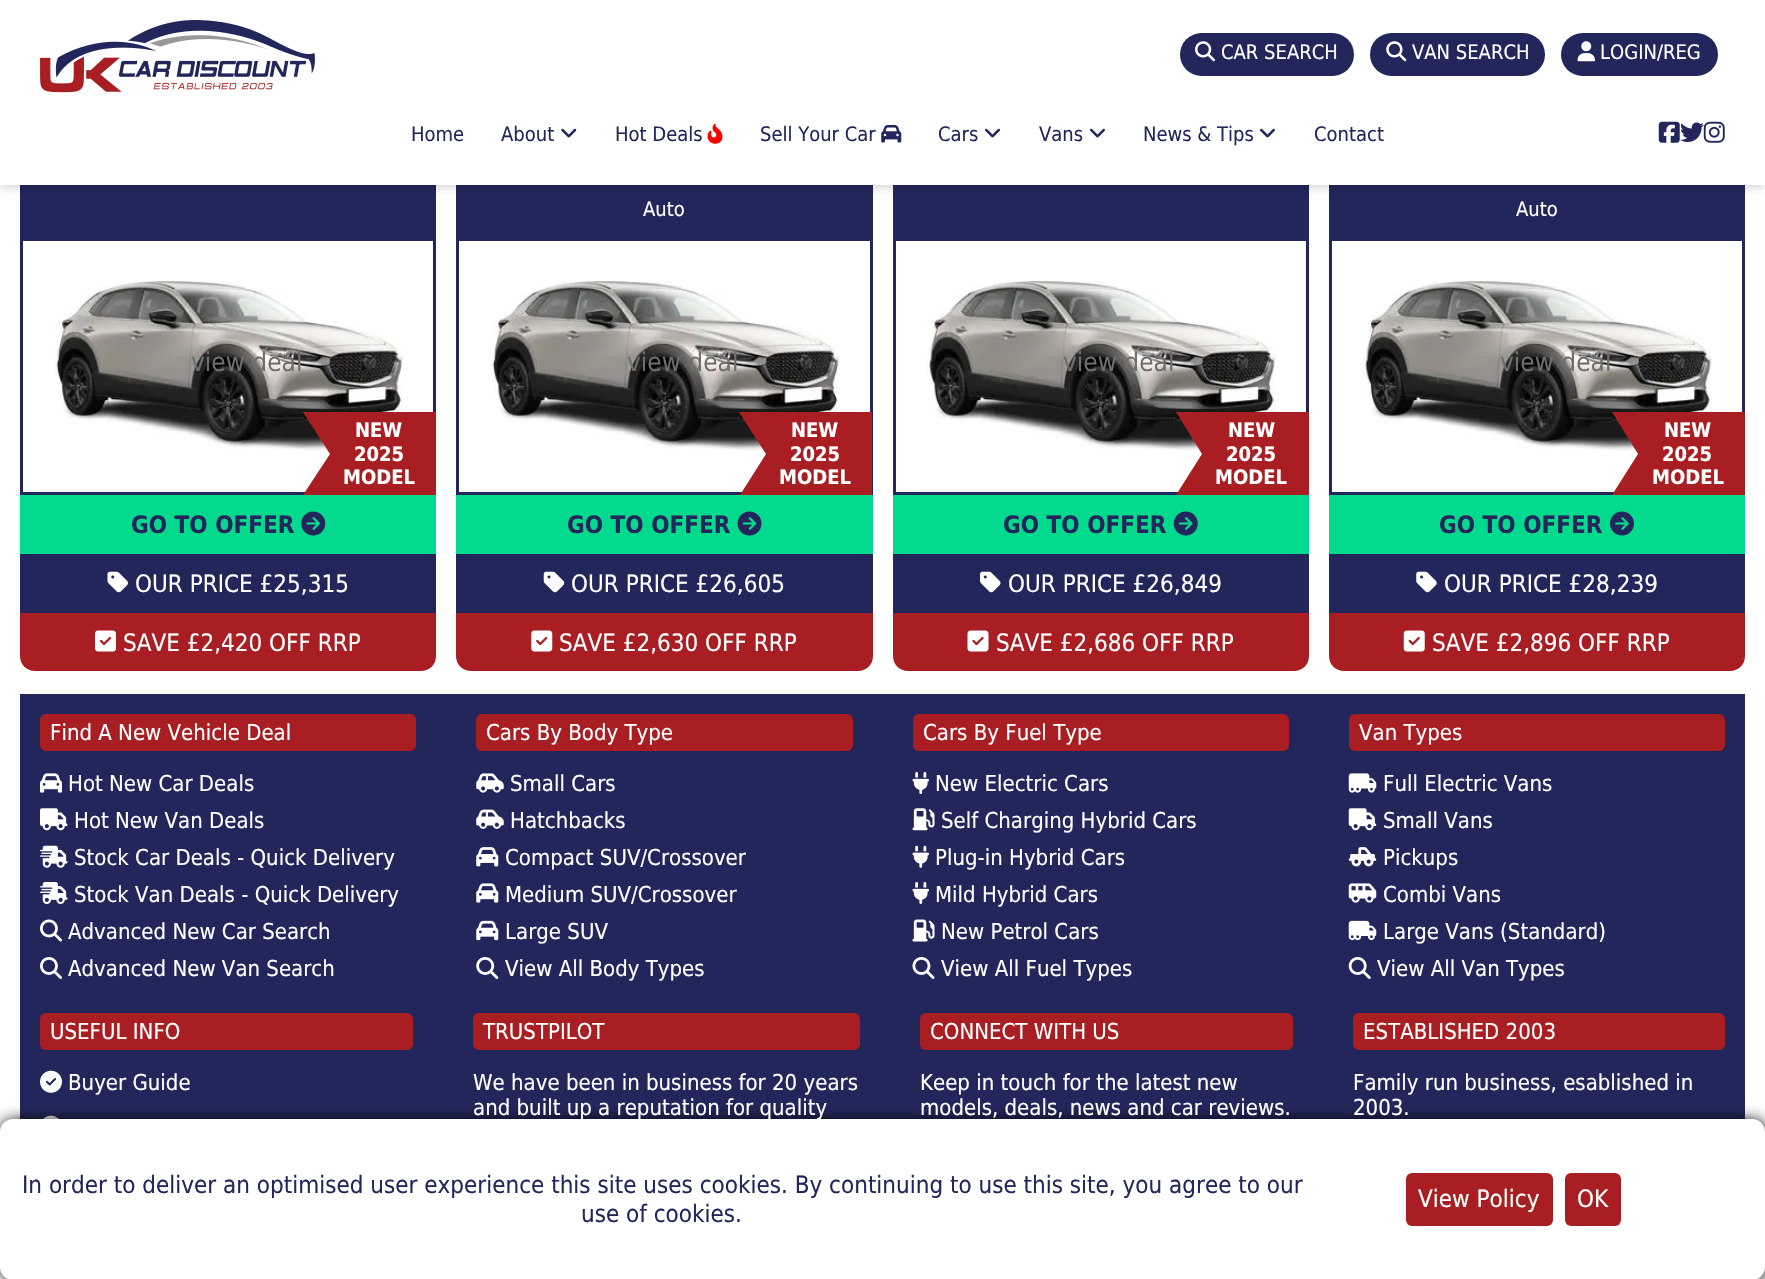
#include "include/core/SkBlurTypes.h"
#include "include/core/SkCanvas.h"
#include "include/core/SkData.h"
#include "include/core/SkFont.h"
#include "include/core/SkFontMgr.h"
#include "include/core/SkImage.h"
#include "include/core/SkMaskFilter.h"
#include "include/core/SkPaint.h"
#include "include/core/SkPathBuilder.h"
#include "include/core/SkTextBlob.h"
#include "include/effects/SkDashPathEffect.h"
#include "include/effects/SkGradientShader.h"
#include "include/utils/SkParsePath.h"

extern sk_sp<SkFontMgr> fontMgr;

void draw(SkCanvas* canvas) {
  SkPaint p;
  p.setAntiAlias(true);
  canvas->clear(SK_ColorWHITE);
  p.setColor(SkColorSetRGB(35, 38, 91));
  canvas->drawRect(SkRect::MakeLTRB(20, 185, 436, 238), p);
  canvas->drawRect(SkRect::MakeLTRB(456, 185, 873, 238), p);
  canvas->drawRect(SkRect::MakeLTRB(893, 185, 1309, 238), p);
  canvas->drawRect(SkRect::MakeLTRB(1329, 185, 1745, 238), p);
  p.setColor(SkColorSetARGB(15, 0, 0, 0));
  p.setMaskFilter(SkMaskFilter::MakeBlur(kNormal_SkBlurStyle, 2.5f));
  canvas->drawRect(SkRect::MakeLTRB(1, 4, 1764, 186), p);
  p.setMaskFilter(nullptr);
  p.setColor(SkColorSetARGB(26, 0, 0, 0));
  p.setMaskFilter(SkMaskFilter::MakeBlur(kNormal_SkBlurStyle, 4));
  canvas->drawRect(SkRect::MakeLTRB(1, 6, 1764, 189), p);
  p.setMaskFilter(nullptr);
  p.setColor(SK_ColorWHITE);
  canvas->drawRect(SkRect::MakeLTRB(0, 0, 1765, 185), p);
  canvas->drawImageRect(SkImages::DeferredFromEncodedData(SkData::MakeFromFileName("images/1.png")), SkRect::MakeLTRB(40, 20, 315, 93), SkSamplingOptions());
  p.setColor(SkColorSetRGB(35, 38, 91));
  canvas->drawRoundRect(SkRect::MakeLTRB(1180, 33, 1354, 76), 21.5f, 21.5f, p);
  canvas->drawImageRect(SkImages::DeferredFromEncodedData(SkData::MakeFromFileName("images/2.png")), SkRect::MakeLTRB(1195, 41, 1215, 62), SkSamplingOptions());
  canvas->drawRoundRect(SkRect::MakeLTRB(1370, 33, 1545, 76), 21.5f, 21.5f, p);
  canvas->drawImageRect(SkImages::DeferredFromEncodedData(SkData::MakeFromFileName("images/3.png")), SkRect::MakeLTRB(1386, 41, 1407, 62), SkSamplingOptions());
  canvas->drawRoundRect(SkRect::MakeLTRB(1561, 33, 1718, 76), 21.5f, 21.5f, p);
  canvas->drawImageRect(SkImages::DeferredFromEncodedData(SkData::MakeFromFileName("images/4.png")), SkRect::MakeLTRB(1577, 41, 1595, 62), SkSamplingOptions());
  canvas->drawImageRect(SkImages::DeferredFromEncodedData(SkData::MakeFromFileName("images/5.png")), SkRect::MakeLTRB(561, 128, 577, 138), SkSamplingOptions());
  canvas->drawImageRect(SkImages::DeferredFromEncodedData(SkData::MakeFromFileName("images/6.png")), SkRect::MakeLTRB(707, 123, 723, 144), SkSamplingOptions());
  canvas->drawImageRect(SkImages::DeferredFromEncodedData(SkData::MakeFromFileName("images/7.png")), SkRect::MakeLTRB(881, 125, 902, 143), SkSamplingOptions());
  canvas->drawImageRect(SkImages::DeferredFromEncodedData(SkData::MakeFromFileName("images/8.png")), SkRect::MakeLTRB(985, 128, 1000, 138), SkSamplingOptions());
  canvas->drawImageRect(SkImages::DeferredFromEncodedData(SkData::MakeFromFileName("images/8.png")), SkRect::MakeLTRB(1090, 128, 1105, 138), SkSamplingOptions());
  canvas->drawImageRect(SkImages::DeferredFromEncodedData(SkData::MakeFromFileName("images/8.png")), SkRect::MakeLTRB(1260, 128, 1275, 138), SkSamplingOptions());
  canvas->drawImageRect(SkImages::DeferredFromEncodedData(SkData::MakeFromFileName("images/9.png")), SkRect::MakeLTRB(1658, 121, 1680, 143), SkSamplingOptions());
  canvas->drawImageRect(SkImages::DeferredFromEncodedData(SkData::MakeFromFileName("images/10.png")), SkRect::MakeLTRB(1680, 122, 1704, 142), SkSamplingOptions());
  canvas->drawImageRect(SkImages::DeferredFromEncodedData(SkData::MakeFromFileName("images/11.png")), SkRect::MakeLTRB(1703, 121, 1725, 143), SkSamplingOptions());
  p.setStyle(SkPaint::kStroke_Style);
  p.setStrokeWidth(3);
  canvas->drawRect(SkRect::MakeLTRB(21.5f, 239.5f, 434.5f, 493.5f), p);
  canvas->drawImageRect(SkImages::DeferredFromEncodedData(SkData::MakeFromFileName("images/12.png")), SkRect::MakeLTRB(54, 281, 404, 451), SkSamplingOptions());
  p.setStyle(SkPaint::kFill_Style);
  p.setColor(SkColorSetRGB(168, 30, 34));
  canvas->drawPath(SkPathBuilder().moveTo(303, 412).lineTo(436, 412).lineTo(436, 495).lineTo(303, 495).lineTo(330, 454).close().detach(), p);
  p.setColor(SkColorSetRGB(4, 218, 141));
  canvas->drawRect(SkRect::MakeLTRB(20, 495, 436, 554), p);
  canvas->drawImageRect(SkImages::DeferredFromEncodedData(SkData::MakeFromFileName("images/13.png")), SkRect::MakeLTRB(301, 511, 326, 536), SkSamplingOptions());
  p.setColor(SkColorSetRGB(35, 38, 91));
  canvas->drawRect(SkRect::MakeLTRB(20, 554, 436, 613), p);
  canvas->drawImageRect(SkImages::DeferredFromEncodedData(SkData::MakeFromFileName("images/14.png")), SkRect::MakeLTRB(107, 571, 128, 593), SkSamplingOptions());
  p.setColor(SkColorSetRGB(168, 30, 34));
  canvas->drawPath(SkPathBuilder().moveTo(20, 613).lineTo(436, 613).lineTo(436, 656).cubicTo(436, 664.5f, 429.5f, 671, 421, 671).lineTo(35, 671).cubicTo(26.5f, 671, 20, 664.5f, 20, 656).close().detach(), p);
  canvas->drawImageRect(SkImages::DeferredFromEncodedData(SkData::MakeFromFileName("images/15.png")), SkRect::MakeLTRB(95, 630, 116, 652), SkSamplingOptions());
  p.setStyle(SkPaint::kStroke_Style);
  p.setColor(SkColorSetRGB(35, 38, 91));
  canvas->drawRect(SkRect::MakeLTRB(457.5f, 239.5f, 871.5f, 493.5f), p);
  canvas->drawImageRect(SkImages::DeferredFromEncodedData(SkData::MakeFromFileName("images/16.png")), SkRect::MakeLTRB(491, 281, 840, 451), SkSamplingOptions());
  p.setStyle(SkPaint::kFill_Style);
  p.setColor(SkColorSetRGB(168, 30, 34));
  canvas->drawPath(SkPathBuilder().moveTo(739, 412).lineTo(872, 412).lineTo(872, 495).lineTo(740, 495).lineTo(766, 454).close().detach(), p);
  p.setColor(SkColorSetRGB(4, 218, 141));
  canvas->drawRect(SkRect::MakeLTRB(456, 495, 873, 554), p);
  canvas->drawImageRect(SkImages::DeferredFromEncodedData(SkData::MakeFromFileName("images/17.png")), SkRect::MakeLTRB(737, 511, 762, 536), SkSamplingOptions());
  p.setColor(SkColorSetRGB(35, 38, 91));
  canvas->drawRect(SkRect::MakeLTRB(456, 554, 873, 613), p);
  canvas->drawImageRect(SkImages::DeferredFromEncodedData(SkData::MakeFromFileName("images/18.png")), SkRect::MakeLTRB(543, 571, 565, 593), SkSamplingOptions());
  p.setColor(SkColorSetRGB(168, 30, 34));
  canvas->drawPath(SkPathBuilder().moveTo(456, 613).lineTo(873, 613).lineTo(873, 656).cubicTo(873, 664.5f, 866.5f, 671, 858, 671).lineTo(471, 671).cubicTo(462.5f, 671, 456, 664.5f, 456, 656).close().detach(), p);
  canvas->drawImageRect(SkImages::DeferredFromEncodedData(SkData::MakeFromFileName("images/19.png")), SkRect::MakeLTRB(531, 630, 553, 652), SkSamplingOptions());
  p.setStyle(SkPaint::kStroke_Style);
  p.setColor(SkColorSetRGB(35, 38, 91));
  canvas->drawRect(SkRect::MakeLTRB(894.5f, 239.5f, 1307.5f, 493.5f), p);
  canvas->drawImageRect(SkImages::DeferredFromEncodedData(SkData::MakeFromFileName("images/20.png")), SkRect::MakeLTRB(927, 281, 1276, 451), SkSamplingOptions());
  p.setStyle(SkPaint::kFill_Style);
  p.setColor(SkColorSetRGB(168, 30, 34));
  canvas->drawPath(SkPathBuilder().moveTo(1176, 412).lineTo(1309, 412).lineTo(1309, 495).lineTo(1176, 495).lineTo(1202, 454).close().detach(), p);
  p.setColor(SkColorSetRGB(4, 218, 141));
  canvas->drawRect(SkRect::MakeLTRB(893, 495, 1309, 554), p);
  canvas->drawImageRect(SkImages::DeferredFromEncodedData(SkData::MakeFromFileName("images/21.png")), SkRect::MakeLTRB(1173, 511, 1198, 536), SkSamplingOptions());
  p.setColor(SkColorSetRGB(35, 38, 91));
  canvas->drawRect(SkRect::MakeLTRB(893, 554, 1309, 613), p);
  canvas->drawImageRect(SkImages::DeferredFromEncodedData(SkData::MakeFromFileName("images/22.png")), SkRect::MakeLTRB(980, 571, 1001, 593), SkSamplingOptions());
  p.setColor(SkColorSetRGB(168, 30, 34));
  canvas->drawPath(SkPathBuilder().moveTo(893, 613).lineTo(1309, 613).lineTo(1309, 656).cubicTo(1309, 664.5f, 1302.5f, 671, 1294, 671).lineTo(908, 671).cubicTo(899.5f, 671, 893, 664.5f, 893, 656).close().detach(), p);
  canvas->drawImageRect(SkImages::DeferredFromEncodedData(SkData::MakeFromFileName("images/23.png")), SkRect::MakeLTRB(967, 630, 989, 652), SkSamplingOptions());
  p.setStyle(SkPaint::kStroke_Style);
  p.setColor(SkColorSetRGB(35, 38, 91));
  canvas->drawRect(SkRect::MakeLTRB(1330.5f, 239.5f, 1743.5f, 493.5f), p);
  canvas->drawImageRect(SkImages::DeferredFromEncodedData(SkData::MakeFromFileName("images/24.png")), SkRect::MakeLTRB(1363, 281, 1712, 451), SkSamplingOptions());
  p.setStyle(SkPaint::kFill_Style);
  p.setColor(SkColorSetRGB(168, 30, 34));
  canvas->drawPath(SkPathBuilder().moveTo(1612, 412).lineTo(1638, 454).lineTo(1612, 495).lineTo(1745, 495).lineTo(1745, 412).close().detach(), p);
  p.setColor(SkColorSetRGB(4, 218, 141));
  canvas->drawRect(SkRect::MakeLTRB(1329, 495, 1745, 554), p);
  canvas->drawImageRect(SkImages::DeferredFromEncodedData(SkData::MakeFromFileName("images/25.png")), SkRect::MakeLTRB(1610, 511, 1634, 536), SkSamplingOptions());
  p.setColor(SkColorSetRGB(35, 38, 91));
  canvas->drawRect(SkRect::MakeLTRB(1329, 554, 1745, 613), p);
  canvas->drawImageRect(SkImages::DeferredFromEncodedData(SkData::MakeFromFileName("images/26.png")), SkRect::MakeLTRB(1416, 571, 1437, 593), SkSamplingOptions());
  p.setColor(SkColorSetRGB(168, 30, 34));
  canvas->drawPath(SkPathBuilder().moveTo(1329, 613).lineTo(1745, 613).lineTo(1745, 656).cubicTo(1745, 664.5f, 1738.5f, 671, 1730, 671).lineTo(1344, 671).cubicTo(1335.5f, 671, 1329, 664.5f, 1329, 656).close().detach(), p);
  canvas->drawImageRect(SkImages::DeferredFromEncodedData(SkData::MakeFromFileName("images/27.png")), SkRect::MakeLTRB(1403, 630, 1425, 652), SkSamplingOptions());
  p.setColor(SkColorSetRGB(35, 38, 91));
  canvas->drawRect(SkRect::MakeLTRB(20, 694, 1745, 1119), p);
  p.setColor(SkColorSetRGB(168, 30, 34));
  canvas->drawRoundRect(SkRect::MakeLTRB(40, 714, 416, 751), 6, 6, p);
  canvas->drawImageRect(SkImages::DeferredFromEncodedData(SkData::MakeFromFileName("images/28.png")), SkRect::MakeLTRB(40, 773, 62, 793), SkSamplingOptions());
  canvas->drawImageRect(SkImages::DeferredFromEncodedData(SkData::MakeFromFileName("images/29.png")), SkRect::MakeLTRB(40, 808, 68, 831), SkSamplingOptions());
  canvas->drawImageRect(SkImages::DeferredFromEncodedData(SkData::MakeFromFileName("images/30.png")), SkRect::MakeLTRB(40, 845, 68, 868), SkSamplingOptions());
  canvas->drawImageRect(SkImages::DeferredFromEncodedData(SkData::MakeFromFileName("images/31.png")), SkRect::MakeLTRB(40, 882, 68, 904), SkSamplingOptions());
  canvas->drawImageRect(SkImages::DeferredFromEncodedData(SkData::MakeFromFileName("images/32.png")), SkRect::MakeLTRB(40, 919, 62, 942), SkSamplingOptions());
  canvas->drawImageRect(SkImages::DeferredFromEncodedData(SkData::MakeFromFileName("images/33.png")), SkRect::MakeLTRB(40, 957, 62, 979), SkSamplingOptions());
  canvas->drawRoundRect(SkRect::MakeLTRB(476, 714, 853, 751), 6, 6, p);
  canvas->drawImageRect(SkImages::DeferredFromEncodedData(SkData::MakeFromFileName("images/34.png")), SkRect::MakeLTRB(476, 773, 504, 793), SkSamplingOptions());
  canvas->drawImageRect(SkImages::DeferredFromEncodedData(SkData::MakeFromFileName("images/35.png")), SkRect::MakeLTRB(476, 809, 504, 829), SkSamplingOptions());
  canvas->drawImageRect(SkImages::DeferredFromEncodedData(SkData::MakeFromFileName("images/36.png")), SkRect::MakeLTRB(476, 847, 499, 867), SkSamplingOptions());
  canvas->drawImageRect(SkImages::DeferredFromEncodedData(SkData::MakeFromFileName("images/37.png")), SkRect::MakeLTRB(476, 883, 499, 903), SkSamplingOptions());
  canvas->drawImageRect(SkImages::DeferredFromEncodedData(SkData::MakeFromFileName("images/38.png")), SkRect::MakeLTRB(476, 920, 499, 941), SkSamplingOptions());
  canvas->drawImageRect(SkImages::DeferredFromEncodedData(SkData::MakeFromFileName("images/39.png")), SkRect::MakeLTRB(476, 957, 499, 979), SkSamplingOptions());
  canvas->drawRoundRect(SkRect::MakeLTRB(913, 714, 1289, 751), 6, 6, p);
  canvas->drawImageRect(SkImages::DeferredFromEncodedData(SkData::MakeFromFileName("images/40.png")), SkRect::MakeLTRB(912, 772, 929, 794), SkSamplingOptions());
  canvas->drawImageRect(SkImages::DeferredFromEncodedData(SkData::MakeFromFileName("images/41.png")), SkRect::MakeLTRB(912, 808, 935, 831), SkSamplingOptions());
  canvas->drawImageRect(SkImages::DeferredFromEncodedData(SkData::MakeFromFileName("images/42.png")), SkRect::MakeLTRB(912, 845, 929, 868), SkSamplingOptions());
  canvas->drawImageRect(SkImages::DeferredFromEncodedData(SkData::MakeFromFileName("images/40.png")), SkRect::MakeLTRB(912, 882, 929, 904), SkSamplingOptions());
  canvas->drawImageRect(SkImages::DeferredFromEncodedData(SkData::MakeFromFileName("images/43.png")), SkRect::MakeLTRB(912, 919, 935, 942), SkSamplingOptions());
  canvas->drawImageRect(SkImages::DeferredFromEncodedData(SkData::MakeFromFileName("images/44.png")), SkRect::MakeLTRB(912, 957, 935, 979), SkSamplingOptions());
  canvas->drawRoundRect(SkRect::MakeLTRB(1349, 714, 1725, 751), 6, 6, p);
  canvas->drawImageRect(SkImages::DeferredFromEncodedData(SkData::MakeFromFileName("images/45.png")), SkRect::MakeLTRB(1348, 773, 1377, 793), SkSamplingOptions());
  canvas->drawImageRect(SkImages::DeferredFromEncodedData(SkData::MakeFromFileName("images/46.png")), SkRect::MakeLTRB(1348, 808, 1377, 831), SkSamplingOptions());
  canvas->drawImageRect(SkImages::DeferredFromEncodedData(SkData::MakeFromFileName("images/47.png")), SkRect::MakeLTRB(1348, 847, 1377, 867), SkSamplingOptions());
  canvas->drawImageRect(SkImages::DeferredFromEncodedData(SkData::MakeFromFileName("images/48.png")), SkRect::MakeLTRB(1348, 883, 1377, 903), SkSamplingOptions());
  canvas->drawImageRect(SkImages::DeferredFromEncodedData(SkData::MakeFromFileName("images/49.png")), SkRect::MakeLTRB(1348, 920, 1377, 941), SkSamplingOptions());
  canvas->drawImageRect(SkImages::DeferredFromEncodedData(SkData::MakeFromFileName("images/50.png")), SkRect::MakeLTRB(1348, 957, 1371, 979), SkSamplingOptions());
  canvas->drawRoundRect(SkRect::MakeLTRB(40, 1013, 413, 1050), 6, 6, p);
  canvas->drawImageRect(SkImages::DeferredFromEncodedData(SkData::MakeFromFileName("images/51.png")), SkRect::MakeLTRB(40, 1070, 62, 1093), SkSamplingOptions());
  canvas->drawImageRect(SkImages::DeferredFromEncodedData(SkData::MakeFromFileName("images/52.png")), SkRect::MakeLTRB(43, 1115, 59, 1119), SkSamplingOptions());
  canvas->drawRoundRect(SkRect::MakeLTRB(473, 1013, 860, 1050), 6, 6, p);
  canvas->drawRoundRect(SkRect::MakeLTRB(920, 1013, 1293, 1050), 6, 6, p);
  canvas->drawRoundRect(SkRect::MakeLTRB(1353, 1013, 1725, 1050), 6, 6, p);
  p.setColor(SK_ColorBLACK);
  p.setMaskFilter(SkMaskFilter::MakeBlur(kNormal_SkBlurStyle, 7.5f));
  canvas->drawRoundRect(SkRect::MakeLTRB(1, 1120, 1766, 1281), 13, 13, p);
  p.setMaskFilter(nullptr);
  p.setColor(SK_ColorWHITE);
  canvas->drawRoundRect(SkRect::MakeLTRB(0, 1119, 1765, 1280), 13, 13, p);
  p.setColor(SkColorSetRGB(168, 30, 34));
  canvas->drawRoundRect(SkRect::MakeLTRB(1406, 1173, 1553, 1226), 6, 6, p);
  canvas->drawRoundRect(SkRect::MakeLTRB(1565, 1173, 1621, 1226), 6, 6, p);
  SkFont font1(fontMgr->matchFamilyStyle("DejaVu Sans", SkFontStyle::Normal()), 20);
  font1.setSubpixel(true);
  p.setColor(SK_ColorWHITE);
  canvas->drawString("CAR SEARCH", 1221, 59, font1, p);
  canvas->drawString("VAN SEARCH", 1412, 59, font1, p);
  canvas->drawString("LOGIN/REG", 1600, 59, font1, p);
  p.setColor(SkColorSetRGB(35, 38, 91));
  canvas->drawString("Home", 411, 141, font1, p);
  canvas->drawString("About", 501, 141, font1, p);
  canvas->drawString("Hot Deals", 615, 141, font1, p);
  canvas->drawString("Sell Your Car", 760, 141, font1, p);
  canvas->drawString("Cars", 938, 141, font1, p);
  canvas->drawString("Vans", 1039, 141, font1, p);
  canvas->drawString("News & Tips", 1143, 141, font1, p);
  canvas->drawString("Contact", 1314, 141, font1, p);
  SkFont font2(fontMgr->matchFamilyStyle("DejaVu Sans", SkFontStyle::Normal()), 26);
  font2.setSubpixel(true);
  p.setColor(SkColorSetRGB(112, 110, 108));
  canvas->drawString("view deal", 191, 371, font2, p);
  SkFont font3(fontMgr->matchFamilyStyle("DejaVu Sans", SkFontStyle::Bold()), 20);
  font3.setSubpixel(true);
  p.setColor(SK_ColorWHITE);
  canvas->drawString("NEW", 355, 437, font3, p);
  canvas->drawString("2025", 354, 461, font3, p);
  canvas->drawString("MODEL", 343, 484, font3, p);
  SkFont font4(fontMgr->matchFamilyStyle("DejaVu Sans", SkFontStyle::Bold()), 24);
  font4.setSubpixel(true);
  p.setColor(SkColorSetRGB(35, 38, 91));
  canvas->drawString("GO TO OFFER", 131, 533, font4, p);
  SkFont font5(fontMgr->matchFamilyStyle("DejaVu Sans", SkFontStyle::Normal()), 24);
  font5.setSubpixel(true);
  p.setColor(SK_ColorWHITE);
  canvas->drawString("OUR PRICE £25,315", 135, 592, font5, p);
  canvas->drawString("SAVE £2,420 OFF RRP", 123, 651, font5, p);
  canvas->drawString("Auto", 643, 216, font1, p);
  p.setColor(SkColorSetRGB(112, 110, 108));
  canvas->drawString("view deal", 627, 371, font2, p);
  p.setColor(SK_ColorWHITE);
  canvas->drawString("NEW", 791, 437, font3, p);
  canvas->drawString("2025", 790, 461, font3, p);
  canvas->drawString("MODEL", 779, 484, font3, p);
  p.setColor(SkColorSetRGB(35, 38, 91));
  canvas->drawString("GO TO OFFER", 567, 533, font4, p);
  p.setColor(SK_ColorWHITE);
  canvas->drawString("OUR PRICE £26,605", 571, 592, font5, p);
  canvas->drawString("SAVE £2,630 OFF RRP", 559, 651, font5, p);
  p.setColor(SkColorSetRGB(112, 110, 108));
  canvas->drawString("view deal", 1063, 371, font2, p);
  p.setColor(SK_ColorWHITE);
  canvas->drawString("NEW", 1228, 437, font3, p);
  canvas->drawString("2025", 1226, 461, font3, p);
  canvas->drawString("MODEL", 1215, 484, font3, p);
  p.setColor(SkColorSetRGB(35, 38, 91));
  canvas->drawString("GO TO OFFER", 1003, 533, font4, p);
  p.setColor(SK_ColorWHITE);
  canvas->drawString("OUR PRICE £26,849", 1008, 592, font5, p);
  canvas->drawString("SAVE £2,686 OFF RRP", 996, 651, font5, p);
  canvas->drawString("Auto", 1516, 216, font1, p);
  p.setColor(SkColorSetRGB(112, 110, 108));
  canvas->drawString("view deal", 1500, 371, font2, p);
  p.setColor(SK_ColorWHITE);
  canvas->drawString("NEW", 1664, 437, font3, p);
  canvas->drawString("2025", 1662, 461, font3, p);
  canvas->drawString("MODEL", 1652, 484, font3, p);
  p.setColor(SkColorSetRGB(35, 38, 91));
  canvas->drawString("GO TO OFFER", 1439, 533, font4, p);
  p.setColor(SK_ColorWHITE);
  canvas->drawString("OUR PRICE £28,239", 1444, 592, font5, p);
  canvas->drawString("SAVE £2,896 OFF RRP", 1432, 651, font5, p);
  SkFont font6(fontMgr->matchFamilyStyle("DejaVu Sans", SkFontStyle::Normal()), 22);
  font6.setSubpixel(true);
  canvas->drawString("Find A New Vehicle Deal", 50, 740, font6, p);
  canvas->drawString("Hot New Car Deals", 68, 791, font6, p);
  canvas->drawString("Hot New Van Deals", 74, 828, font6, p);
  canvas->drawString("Stock Car Deals - Quick Delivery", 74, 865, font6, p);
  canvas->drawString("Stock Van Deals - Quick Delivery", 74, 902, font6, p);
  canvas->drawString("Advanced New Car Search", 68, 939, font6, p);
  canvas->drawString("Advanced New Van Search", 68, 976, font6, p);
  canvas->drawString("Cars By Body Type", 486, 740, font6, p);
  canvas->drawString("Small Cars", 510, 791, font6, p);
  canvas->drawString("Hatchbacks", 510, 828, font6, p);
  canvas->drawString("Compact SUV/Crossover", 505, 865, font6, p);
  canvas->drawString("Medium SUV/Crossover", 505, 902, font6, p);
  canvas->drawString("Large SUV", 505, 939, font6, p);
  canvas->drawString("View All Body Types", 505, 976, font6, p);
  canvas->drawString("Cars By Fuel Type", 923, 740, font6, p);
  canvas->drawString("New Electric Cars", 935, 791, font6, p);
  canvas->drawString("Self Charging Hybrid Cars", 941, 828, font6, p);
  canvas->drawString("Plug-in Hybrid Cars", 935, 865, font6, p);
  canvas->drawString("Mild Hybrid Cars", 935, 902, font6, p);
  canvas->drawString("New Petrol Cars", 941, 939, font6, p);
  canvas->drawString("View All Fuel Types", 941, 976, font6, p);
  canvas->drawString("Van Types", 1359, 740, font6, p);
  canvas->drawString("Full Electric Vans", 1383, 791, font6, p);
  canvas->drawString("Small Vans", 1383, 828, font6, p);
  canvas->drawString("Pickups", 1383, 865, font6, p);
  canvas->drawString("Combi Vans", 1383, 902, font6, p);
  canvas->drawString("Large Vans (Standard)", 1383, 939, font6, p);
  canvas->drawString("View All Van Types", 1377, 976, font6, p);
  canvas->drawString("USEFUL INFO", 50, 1039, font6, p);
  canvas->drawString("Buyer Guide", 68, 1090, font6, p);
  canvas->drawString("TRUSTPILOT", 483, 1039, font6, p);
  canvas->drawString("We have been in business for 20 years", 473, 1090, font6, p);
  canvas->drawString("and built up a reputation for quality", 473, 1115, font6, p);
  canvas->drawString("CONNECT WITH US", 930, 1039, font6, p);
  canvas->drawString("Keep in touch for the latest new", 920, 1090, font6, p);
  canvas->drawString("models, deals, news and car reviews.", 920, 1115, font6, p);
  canvas->drawString("ESTABLISHED 2003", 1363, 1039, font6, p);
  canvas->drawString("Family run business, esablished in", 1353, 1090, font6, p);
  canvas->drawString("2003.", 1353, 1115, font6, p);
  p.setColor(SkColorSetRGB(35, 38, 91));
  canvas->drawString("In order to deliver an optimised user experience this site uses cookies. By continuing to use this site, you agree to our", 22, 1193, font5, p);
  canvas->drawString("use of cookies.", 581, 1222, font5, p);
  p.setColor(SK_ColorWHITE);
  canvas->drawString("View Policy", 1418, 1207, font5, p);
  canvas->drawString("OK", 1577, 1207, font5, p);
}
